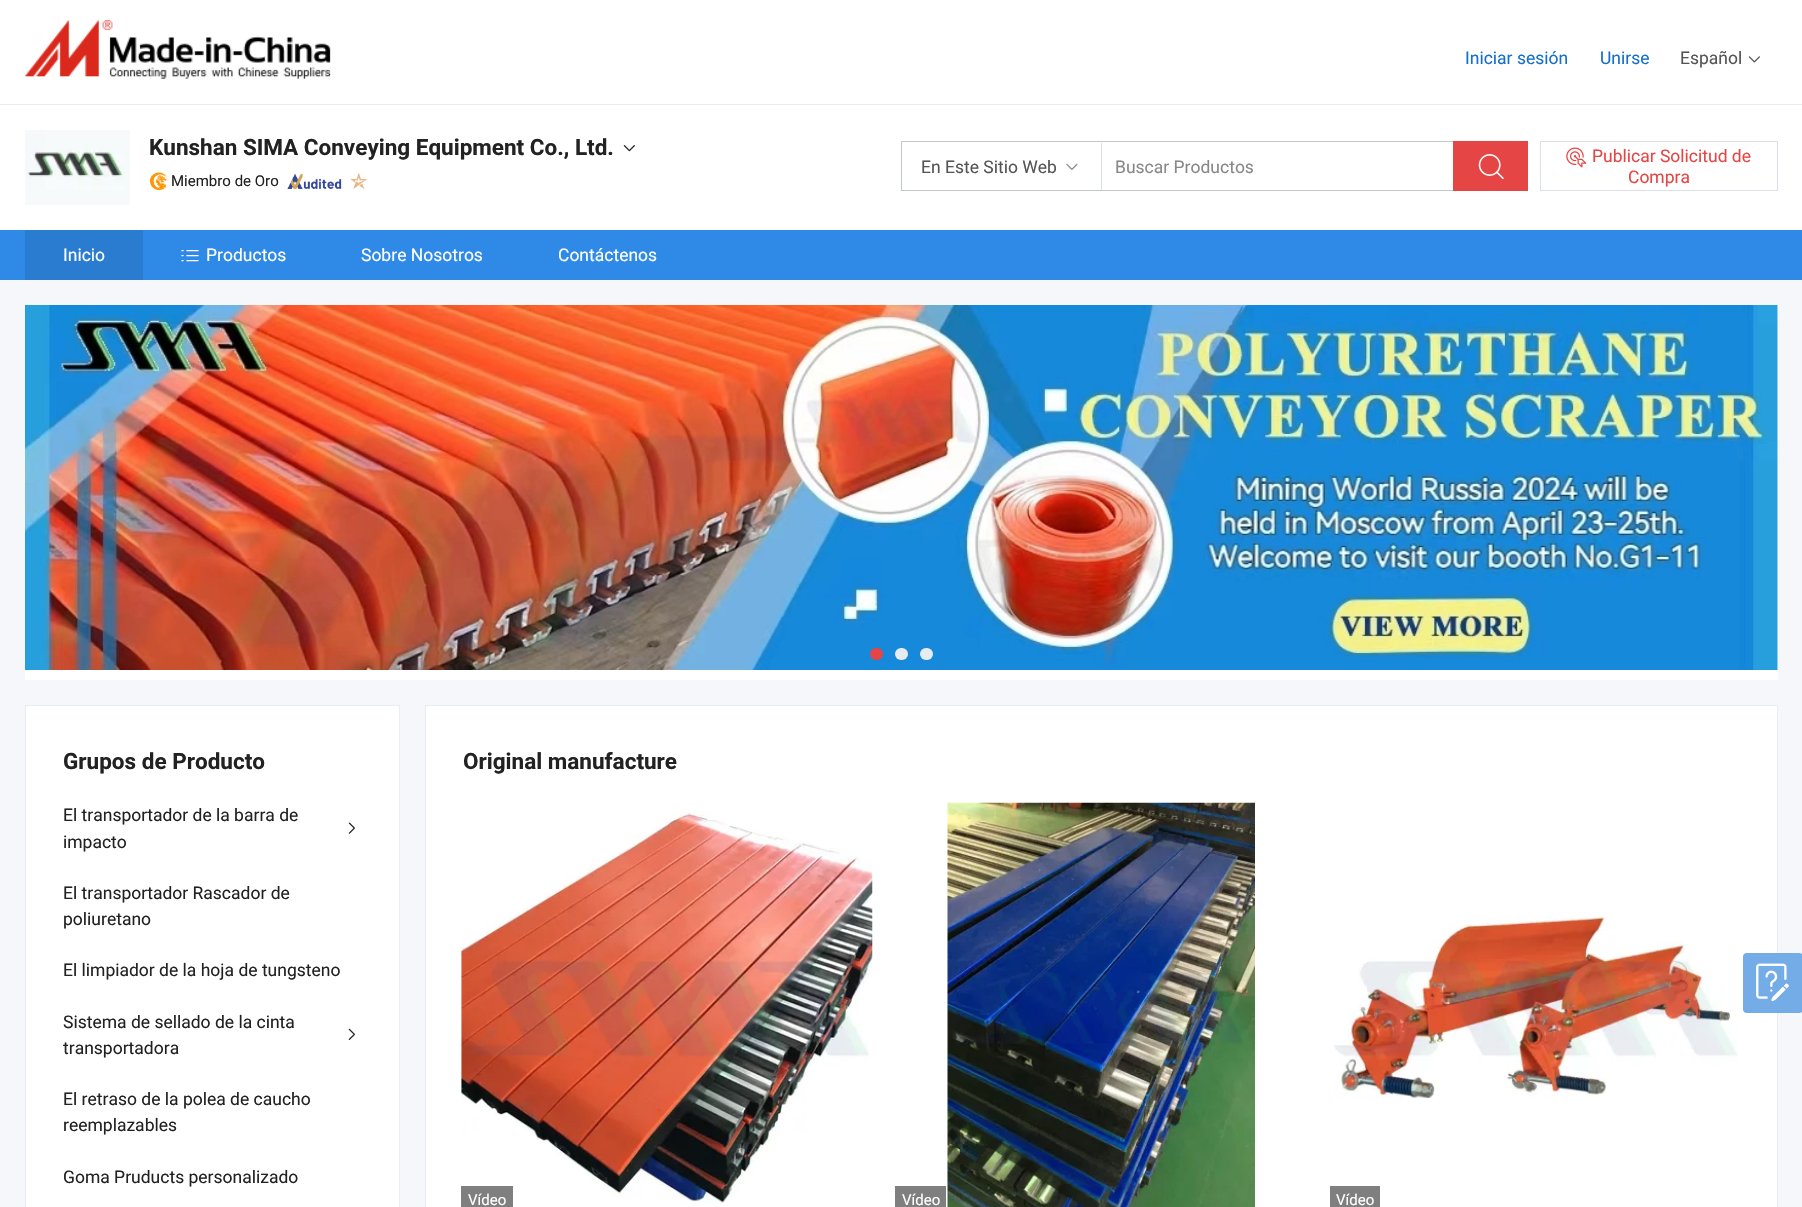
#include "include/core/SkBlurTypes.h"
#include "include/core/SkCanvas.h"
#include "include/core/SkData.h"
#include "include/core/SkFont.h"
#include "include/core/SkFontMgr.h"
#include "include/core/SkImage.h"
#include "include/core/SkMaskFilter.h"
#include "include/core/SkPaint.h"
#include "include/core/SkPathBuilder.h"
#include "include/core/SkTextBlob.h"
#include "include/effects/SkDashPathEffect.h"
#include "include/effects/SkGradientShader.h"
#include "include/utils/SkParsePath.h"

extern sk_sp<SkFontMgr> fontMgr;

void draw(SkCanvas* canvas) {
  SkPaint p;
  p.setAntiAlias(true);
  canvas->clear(SK_ColorWHITE);
  p.setColor(SkColorSetRGB(230, 236, 242));
  canvas->drawRect(SkRect::MakeLTRB(0, 104, 1802, 105), p);
  canvas->drawImageRect(SkImages::DeferredFromEncodedData(SkData::MakeFromFileName("images/1.png")), SkRect::MakeLTRB(25, 130, 130, 205), SkSamplingOptions());
  canvas->drawImageRect(SkImages::DeferredFromEncodedData(SkData::MakeFromFileName("images/2.png")), SkRect::MakeLTRB(623, 145, 635, 152), SkSamplingOptions());
  canvas->drawImageRect(SkImages::DeferredFromEncodedData(SkData::MakeFromFileName("images/3.png")), SkRect::MakeLTRB(150, 172, 168, 190), SkSamplingOptions());
  canvas->drawImageRect(SkImages::DeferredFromEncodedData(SkData::MakeFromFileName("images/4.png")), SkRect::MakeLTRB(287, 173, 342, 189), SkSamplingOptions());
  canvas->drawImageRect(SkImages::DeferredFromEncodedData(SkData::MakeFromFileName("images/5.png")), SkRect::MakeLTRB(350, 172, 368, 190), SkSamplingOptions());
  canvas->drawImageRect(SkImages::DeferredFromEncodedData(SkData::MakeFromFileName("images/6.png")), SkRect::MakeLTRB(25, 20, 331, 79), SkSamplingOptions());
  canvas->drawImageRect(SkImages::DeferredFromEncodedData(SkData::MakeFromFileName("images/7.png")), SkRect::MakeLTRB(1748, 56, 1760, 63), SkSamplingOptions());
  p.setStyle(SkPaint::kStroke_Style);
  p.setStrokeWidth(1);
  p.setColor(SkColorSetRGB(194, 199, 204));
  canvas->drawRect(SkRect::MakeLTRB(901.5f, 141.5f, 1527.5f, 190.5f), p);
  p.setStyle(SkPaint::kFill_Style);
  p.setColor(SkColorSetRGB(218, 224, 229));
  canvas->drawRect(SkRect::MakeLTRB(1101, 143, 1102, 190), p);
  canvas->drawImageRect(SkImages::DeferredFromEncodedData(SkData::MakeFromFileName("images/8.png")), SkRect::MakeLTRB(1066, 163, 1078, 170), SkSamplingOptions());
  p.setColor(SkColorSetRGB(230, 69, 69));
  canvas->drawRect(SkRect::MakeLTRB(1453, 141, 1528, 191), p);
  canvas->drawImageRect(SkImages::DeferredFromEncodedData(SkData::MakeFromFileName("images/9.png")), SkRect::MakeLTRB(1478, 154, 1504, 179), SkSamplingOptions());
  p.setStyle(SkPaint::kStroke_Style);
  p.setColor(SkColorSetRGB(218, 224, 229));
  canvas->drawRect(SkRect::MakeLTRB(1540.5f, 141.5f, 1777.5f, 190.5f), p);
  canvas->drawImageRect(SkImages::DeferredFromEncodedData(SkData::MakeFromFileName("images/10.png")), SkRect::MakeLTRB(1566, 147, 1587, 168), SkSamplingOptions());
  p.setStyle(SkPaint::kFill_Style);
  p.setColor(SkColorSetRGB(46, 138, 230));
  canvas->drawRect(SkRect::MakeLTRB(0, 230, 1802, 280), p);
  p.setColor(SkColorSetRGB(41, 124, 207));
  canvas->drawRect(SkRect::MakeLTRB(25, 230, 143, 280), p);
  canvas->drawImageRect(SkImages::DeferredFromEncodedData(SkData::MakeFromFileName("images/11.png")), SkRect::MakeLTRB(181, 250, 199, 262), SkSamplingOptions());
  p.setColor(SkColorSetRGB(245, 247, 250));
  canvas->drawRect(SkRect::MakeLTRB(0, 280, 1802, 1207), p);
  p.setColor(SK_ColorWHITE);
  canvas->drawRect(SkRect::MakeLTRB(25, 305, 1778, 680), p);
  canvas->drawImageRect(SkImages::DeferredFromEncodedData(SkData::MakeFromFileName("images/12.png")), SkRect::MakeLTRB(25, 305, 1778, 670), SkSamplingOptions());
  p.setColor(SkColorSetRGB(230, 69, 69));
  canvas->drawRoundRect(SkRect::MakeLTRB(870, 648, 883, 660), 6, 6, p);
  p.setColor(SkColorSetRGB(230, 236, 242));
  canvas->drawRoundRect(SkRect::MakeLTRB(895, 648, 908, 660), 6, 6, p);
  canvas->drawRoundRect(SkRect::MakeLTRB(920, 648, 933, 660), 6, 6, p);
  p.setColor(SK_ColorWHITE);
  canvas->drawRect(SkRect::MakeLTRB(25.5f, 705.5f, 399.5f, 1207.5f), p);
  p.setStyle(SkPaint::kStroke_Style);
  p.setColor(SkColorSetRGB(233, 238, 244));
  canvas->drawRect(SkRect::MakeLTRB(25.5f, 705.5f, 399.5f, 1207.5f), p);
  canvas->drawImageRect(SkImages::DeferredFromEncodedData(SkData::MakeFromFileName("images/13.png")), SkRect::MakeLTRB(348, 822, 355, 834), SkSamplingOptions());
  canvas->drawImageRect(SkImages::DeferredFromEncodedData(SkData::MakeFromFileName("images/14.png")), SkRect::MakeLTRB(348, 1028, 355, 1040), SkSamplingOptions());
  p.setStyle(SkPaint::kFill_Style);
  p.setColor(SK_ColorWHITE);
  canvas->drawRect(SkRect::MakeLTRB(425.5f, 705.5f, 1777.5f, 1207.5f), p);
  p.setStyle(SkPaint::kStroke_Style);
  p.setColor(SkColorSetRGB(233, 238, 244));
  canvas->drawRect(SkRect::MakeLTRB(425.5f, 705.5f, 1777.5f, 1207.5f), p);
  canvas->drawImageRect(SkImages::DeferredFromEncodedData(SkData::MakeFromFileName("images/15.png")), SkRect::MakeLTRB(461, 812, 873, 1204), SkSamplingOptions());
  p.setStyle(SkPaint::kFill_Style);
  p.setColor(SkColorSetRGB(127, 127, 127));
  canvas->drawRect(SkRect::MakeLTRB(461, 1186, 513, 1207), p);
  canvas->drawRect(SkRect::MakeLTRB(895, 1186, 946, 1207), p);
  canvas->drawImageRect(SkImages::DeferredFromEncodedData(SkData::MakeFromFileName("images/16.png")), SkRect::MakeLTRB(947, 802, 1255, 1207), SkSamplingOptions());
  canvas->drawImageRect(SkImages::DeferredFromEncodedData(SkData::MakeFromFileName("images/17.png")), SkRect::MakeLTRB(1334, 916, 1738, 1099), SkSamplingOptions());
  canvas->drawRect(SkRect::MakeLTRB(1330, 1186, 1380, 1207), p);
  p.setColor(SkColorSetRGB(115, 172, 230));
  canvas->drawRoundRect(SkRect::MakeLTRB(1743, 953, 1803, 1013), 4, 4, p);
  canvas->drawImageRect(SkImages::DeferredFromEncodedData(SkData::MakeFromFileName("images/18.png")), SkRect::MakeLTRB(1756, 963, 1789, 1002), SkSamplingOptions());
  SkFont font1(fontMgr->matchFamilyStyle("Roboto", SkFontStyle::Bold()), 22.5f);
  font1.setSubpixel(true);
  p.setColor(SkColorSetRGB(34, 34, 34));
  canvas->drawString("Kunshan SIMA Conveying Equipment Co., Ltd.", 149, 155, font1, p);
  SkFont font2(fontMgr->matchFamilyStyle("Roboto", SkFontStyle::Normal()), 15);
  font2.setSubpixel(true);
  canvas->drawString("Miembro de Oro", 171, 186, font2, p);
  SkFont font3(fontMgr->matchFamilyStyle("Roboto", SkFontStyle::Normal()), 17.5f);
  font3.setSubpixel(true);
  p.setColor(SkColorSetRGB(20, 112, 204));
  canvas->drawString("Iniciar sesión", 1465, 64, font3, p);
  canvas->drawString("Unirse", 1600, 64, font3, p);
  p.setColor(SkColorSetRGB(85, 85, 85));
  canvas->drawString("Español", 1680, 64, font3, p);
  canvas->drawString("En Este Sitio Web", 921, 173, font3, p);
  p.setColor(SkColorSetRGB(136, 136, 136));
  canvas->drawString("Buscar Productos", 1115, 173, font3, p);
  p.setColor(SkColorSetRGB(230, 69, 69));
  canvas->drawString("Publicar Solicitud de", 1592, 162, font3, p);
  canvas->drawString("Compra", 1628, 183, font3, p);
  p.setColor(SK_ColorWHITE);
  canvas->drawString("Inicio", 63, 261, font3, p);
  canvas->drawString("Productos", 206, 261, font3, p);
  canvas->drawString("Sobre Nosotros", 361, 261, font3, p);
  canvas->drawString("Contáctenos", 558, 261, font3, p);
  p.setColor(SkColorSetRGB(34, 34, 34));
  canvas->drawString("Grupos de Producto", 63, 769, font1, p);
  canvas->drawString("El transportador de la barra de", 63, 821, font3, p);
  canvas->drawString("impacto", 63, 848, font3, p);
  canvas->drawString("El transportador Rascador de", 63, 899, font3, p);
  canvas->drawString("poliuretano", 63, 925, font3, p);
  canvas->drawString("El limpiador de la hoja de tungsteno", 63, 976, font3, p);
  canvas->drawString("Sistema de sellado de la cinta", 63, 1028, font3, p);
  canvas->drawString("transportadora", 63, 1054, font3, p);
  canvas->drawString("El retraso de la polea de caucho", 63, 1105, font3, p);
  canvas->drawString("reemplazables", 63, 1131, font3, p);
  canvas->drawString("Goma Pruducts personalizado", 63, 1183, font3, p);
  canvas->drawString("Original manufacture", 463, 769, font1, p);
  p.setColor(SK_ColorWHITE);
  canvas->drawString("Vídeo", 468, 1205, font2, p);
  canvas->drawString("Vídeo", 902, 1205, font2, p);
  canvas->drawString("Vídeo", 1336, 1205, font2, p);
}
